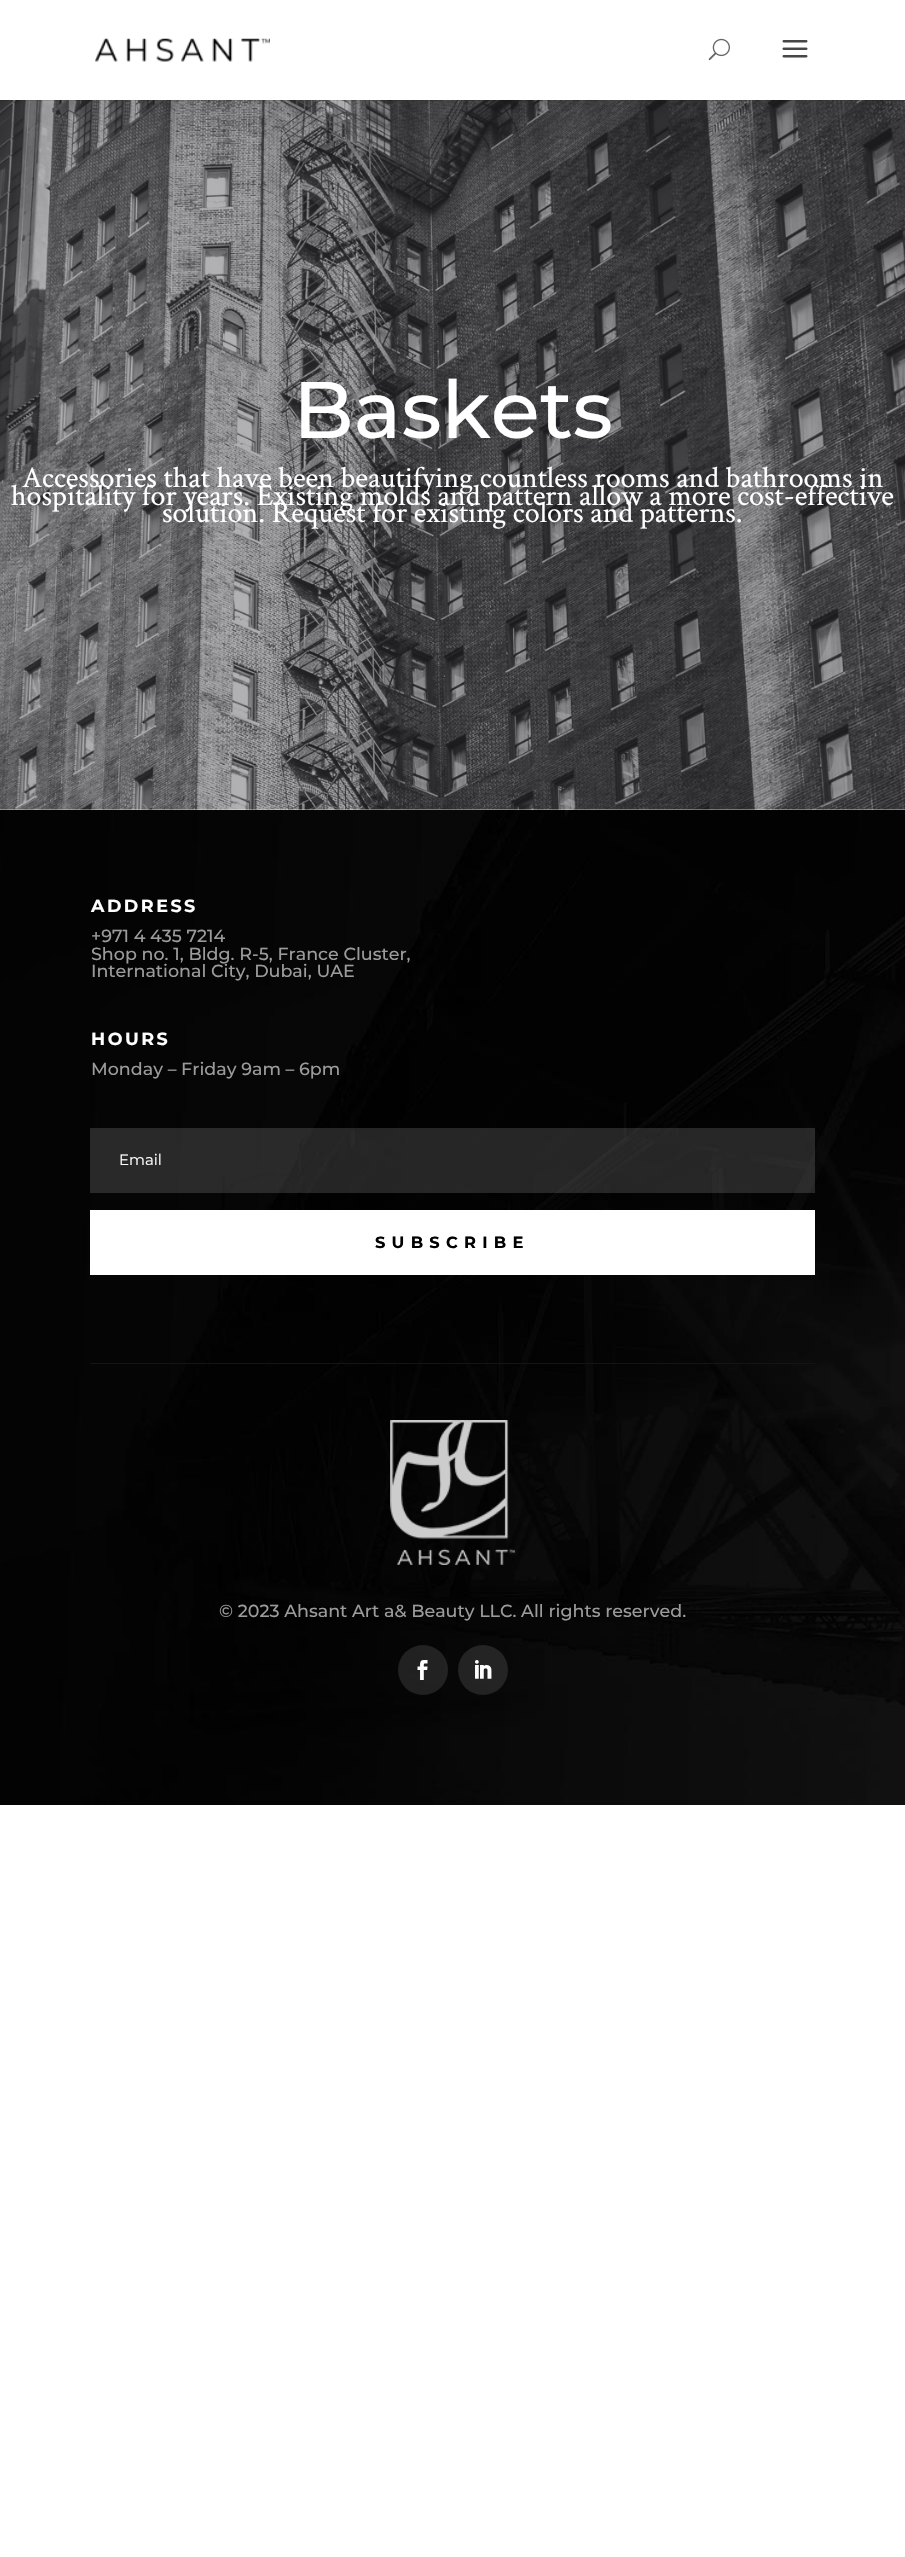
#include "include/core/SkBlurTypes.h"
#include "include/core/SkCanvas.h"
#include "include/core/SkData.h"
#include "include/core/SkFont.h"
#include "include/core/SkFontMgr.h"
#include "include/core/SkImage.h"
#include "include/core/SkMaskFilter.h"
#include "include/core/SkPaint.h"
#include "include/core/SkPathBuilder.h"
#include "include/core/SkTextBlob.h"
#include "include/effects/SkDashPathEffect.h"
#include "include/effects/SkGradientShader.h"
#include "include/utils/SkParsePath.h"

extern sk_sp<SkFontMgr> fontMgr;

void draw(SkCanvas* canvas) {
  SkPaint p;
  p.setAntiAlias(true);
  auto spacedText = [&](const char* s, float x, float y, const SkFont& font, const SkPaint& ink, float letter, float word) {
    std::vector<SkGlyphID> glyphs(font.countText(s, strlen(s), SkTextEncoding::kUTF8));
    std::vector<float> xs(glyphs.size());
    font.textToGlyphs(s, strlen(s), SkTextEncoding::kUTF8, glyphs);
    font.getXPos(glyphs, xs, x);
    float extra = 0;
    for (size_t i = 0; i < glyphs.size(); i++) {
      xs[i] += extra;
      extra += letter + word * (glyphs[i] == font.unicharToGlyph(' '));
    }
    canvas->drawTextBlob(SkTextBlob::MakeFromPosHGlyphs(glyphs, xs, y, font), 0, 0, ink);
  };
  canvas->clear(SK_ColorWHITE);
  canvas->drawImageRect(SkImages::DeferredFromEncodedData(SkData::MakeFromFileName("images/4.png")), SkRect::MakeLTRB(0, 100, 905, 810), SkSamplingOptions());
  p.setColor(SkColorSetARGB(26, 0, 0, 0));
  canvas->drawRect(SkRect::MakeLTRB(0, 100, 905, 101), p);
  canvas->drawImageRect(SkImages::DeferredFromEncodedData(SkData::MakeFromFileName("images/1.png")), SkRect::MakeLTRB(95, 38, 270, 62), SkSamplingOptions());
  canvas->drawImageRect(SkImages::DeferredFromEncodedData(SkData::MakeFromFileName("images/2.png")), SkRect::MakeLTRB(708, 38, 730, 61), SkSamplingOptions());
  canvas->drawImageRect(SkImages::DeferredFromEncodedData(SkData::MakeFromFileName("images/3.png")), SkRect::MakeLTRB(782, 40, 808, 58), SkSamplingOptions());
  canvas->drawImageRect(SkImages::DeferredFromEncodedData(SkData::MakeFromFileName("images/5.png")), SkRect::MakeLTRB(0, 810, 905, 1805), SkSamplingOptions());
  p.setColor(SkColorSetARGB(36, 255, 255, 255));
  canvas->drawRect(SkRect::MakeLTRB(90, 1128, 815, 1193), p);
  p.setColor(SK_ColorWHITE);
  canvas->drawRect(SkRect::MakeLTRB(90, 1210, 815, 1275), p);
  p.setColor(SkColorSetRGB(20, 20, 20));
  canvas->drawRect(SkRect::MakeLTRB(90, 1363, 815, 1364), p);
  canvas->drawImageRect(SkImages::DeferredFromEncodedData(SkData::MakeFromFileName("images/6.png")), SkRect::MakeLTRB(390, 1420, 515, 1565), SkSamplingOptions());
  p.setColor(SkColorSetARGB(28, 255, 255, 255));
  canvas->drawCircle(423, 1670, 25, p);
  canvas->drawImageRect(SkImages::DeferredFromEncodedData(SkData::MakeFromFileName("images/7.png")), SkRect::MakeLTRB(417, 1660, 428, 1680), SkSamplingOptions());
  canvas->drawCircle(483, 1670, 25, p);
  canvas->drawImageRect(SkImages::DeferredFromEncodedData(SkData::MakeFromFileName("images/8.png")), SkRect::MakeLTRB(475, 1660, 492, 1679), SkSamplingOptions());
  SkFont font1(fontMgr->matchFamilyStyle("Montserrat", SkFontStyle(500, SkFontStyle::kNormal_Width, SkFontStyle::kUpright_Slant)), 80);
  font1.setSubpixel(true);
  p.setColor(SK_ColorWHITE);
  canvas->drawString("Baskets", 293, 438, font1, p);
  SkFont font2(fontMgr->matchFamilyStyle("Crimson Text", SkFontStyle::Normal()), 30);
  font2.setSubpixel(true);
  canvas->drawString("Accessories that have been beautifying countless rooms and bathrooms in", 22, 487, font2, p);
  canvas->drawString("hospitality for years. Existing molds and pattern allow a more cost-effective", 11, 505, font2, p);
  canvas->drawString("solution. Request for existing colors and patterns.", 162, 522, font2, p);
  SkFont font3(fontMgr->matchFamilyStyle("Montserrat", SkFontStyle::Bold()), 17.5f);
  font3.setSubpixel(true);
  spacedText("ADDRESS", 91, 912, font3, p, 2.5f, 0);
  SkFont font4(fontMgr->matchFamilyStyle("Montserrat", SkFontStyle(500, SkFontStyle::kNormal_Width, SkFontStyle::kUpright_Slant)), 17.5f);
  font4.setSubpixel(true);
  p.setColor(SkColorSetRGB(155, 155, 155));
  canvas->drawString("+971 4 435 7214", 91, 942, font4, p);
  canvas->drawString("Shop no. 1, Bldg. R-5, France Cluster,", 91, 960, font4, p);
  canvas->drawString("International City, Dubai, UAE", 91, 977, font4, p);
  p.setColor(SK_ColorWHITE);
  spacedText("HOURS", 91, 1045, font3, p, 2.5f, 0);
  p.setColor(SkColorSetRGB(155, 155, 155));
  canvas->drawString("Monday – Friday 9am – 6pm", 91, 1075, font4, p);
  SkFont font5(fontMgr->matchFamilyStyle("Montserrat", SkFontStyle::Normal()), 15);
  font5.setSubpixel(true);
  p.setColor(SK_ColorWHITE);
  canvas->drawString("Email", 119, 1165, font5, p);
  SkFont font6(fontMgr->matchFamilyStyle("Montserrat", SkFontStyle::Bold()), 16.25f);
  font6.setSubpixel(true);
  p.setColor(SK_ColorBLACK);
  spacedText("SUBSCRIBE", 375, 1248, font6, p, 6.25f, 0);
  p.setColor(SkColorSetRGB(155, 155, 155));
  canvas->drawString("© 2023 Ahsant Art a& Beauty LLC. All rights reserved.", 219, 1617, font4, p);
}
